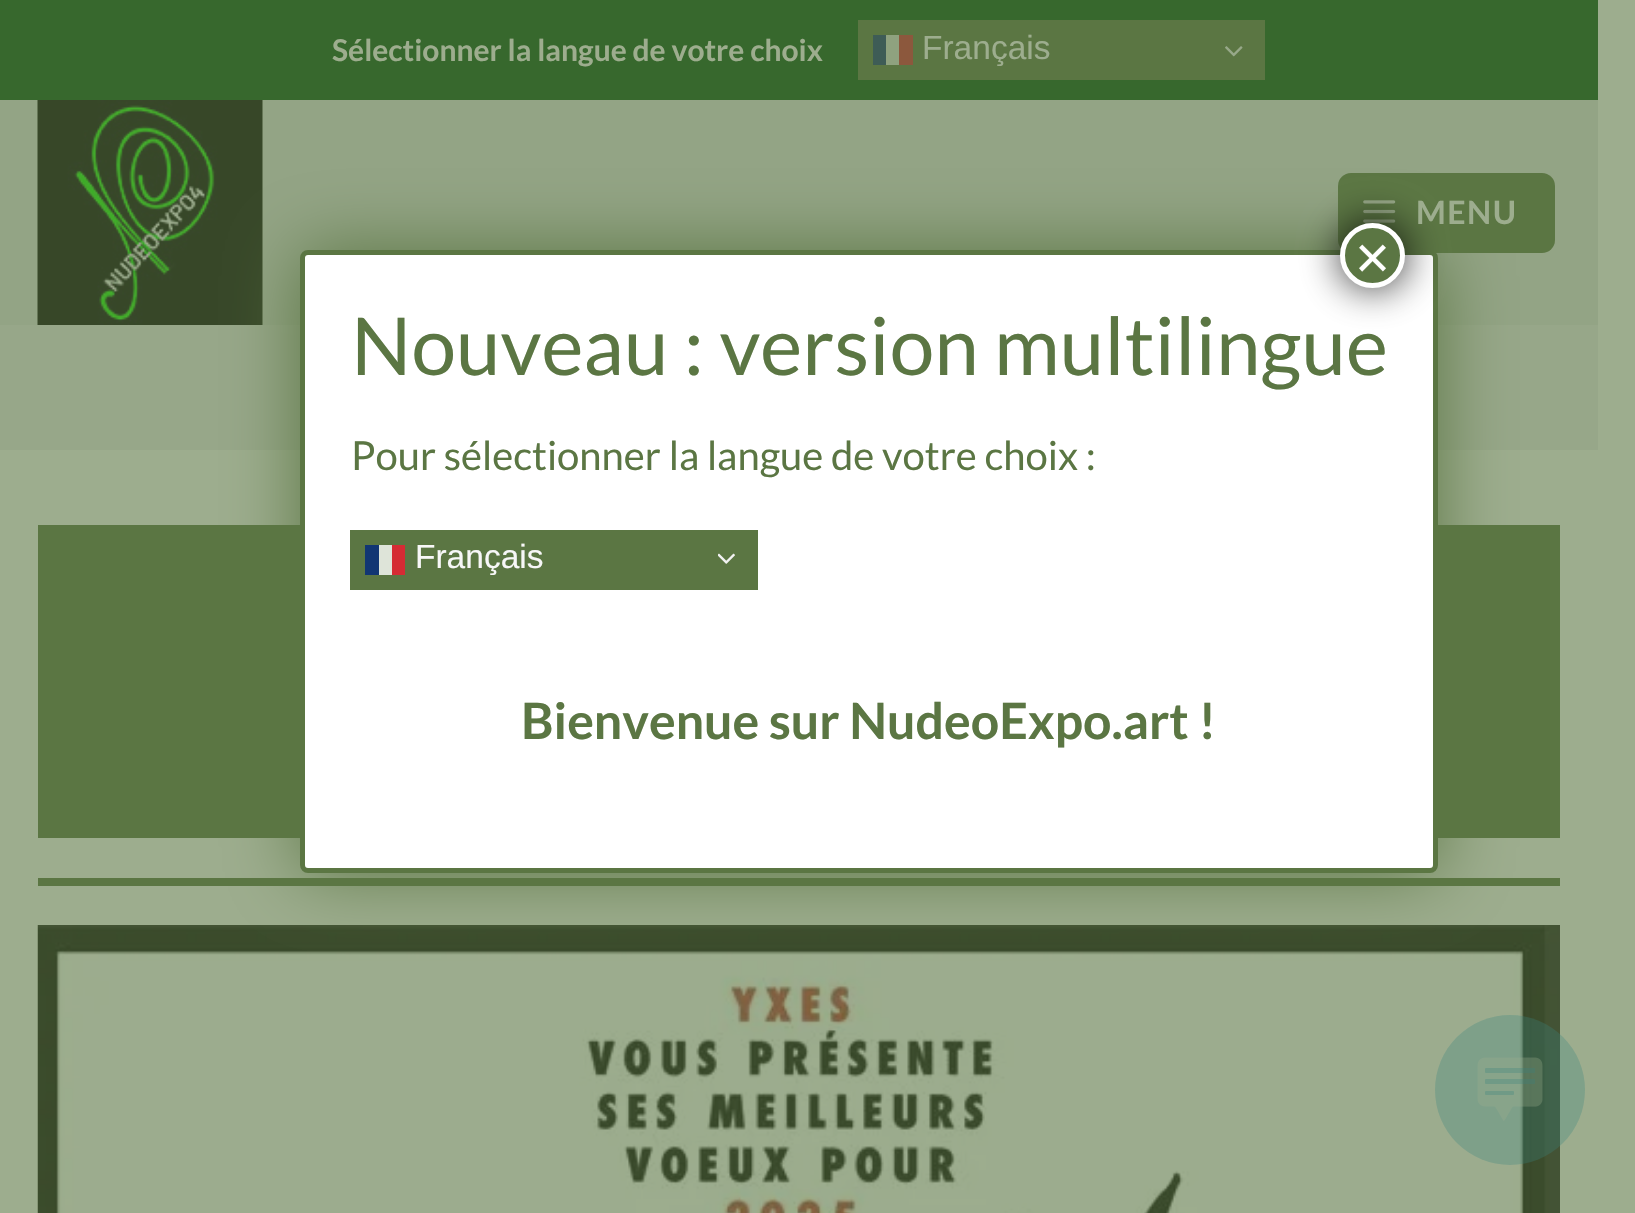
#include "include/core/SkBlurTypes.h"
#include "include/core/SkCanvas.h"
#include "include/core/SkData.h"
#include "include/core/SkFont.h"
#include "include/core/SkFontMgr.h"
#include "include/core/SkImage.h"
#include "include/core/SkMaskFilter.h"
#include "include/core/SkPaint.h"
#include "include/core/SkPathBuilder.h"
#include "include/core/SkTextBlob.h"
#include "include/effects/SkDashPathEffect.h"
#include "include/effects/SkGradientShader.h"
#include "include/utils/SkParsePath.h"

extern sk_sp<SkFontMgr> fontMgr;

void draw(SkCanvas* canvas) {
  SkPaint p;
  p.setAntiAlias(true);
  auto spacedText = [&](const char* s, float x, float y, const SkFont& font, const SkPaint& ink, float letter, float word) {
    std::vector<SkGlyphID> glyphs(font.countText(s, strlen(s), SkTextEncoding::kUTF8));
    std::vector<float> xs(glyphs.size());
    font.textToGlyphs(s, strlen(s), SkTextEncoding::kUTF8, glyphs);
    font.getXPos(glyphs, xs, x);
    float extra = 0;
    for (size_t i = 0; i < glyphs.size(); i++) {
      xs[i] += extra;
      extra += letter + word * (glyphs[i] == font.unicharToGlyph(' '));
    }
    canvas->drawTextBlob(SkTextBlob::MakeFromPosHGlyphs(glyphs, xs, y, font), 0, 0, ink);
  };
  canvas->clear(SkColorSetRGB(157, 173, 142));
  p.setColor(SkColorSetRGB(55, 104, 45));
  canvas->drawRect(SkRect::MakeLTRB(0, 0, 1598, 100), p);
  p.setColor(SkColorSetRGB(91, 118, 67));
  canvas->drawRect(SkRect::MakeLTRB(858, 20, 1265, 80), p);
  p.setColor(SkColorSetRGB(62, 92, 86));
  canvas->drawRect(SkRect::MakeLTRB(873, 35, 886, 65), p);
  p.setColor(SkColorSetRGB(143, 162, 127));
  canvas->drawRect(SkRect::MakeLTRB(886, 35, 899, 65), p);
  p.setColor(SkColorSetRGB(140, 88, 61));
  canvas->drawRect(SkRect::MakeLTRB(899, 35, 913, 65), p);
  canvas->drawImageRect(SkImages::DeferredFromEncodedData(SkData::MakeFromFileName("images/1.png")), SkRect::MakeLTRB(1225, 46, 1243, 57), SkSamplingOptions());
  p.setColor(SkColorSetRGB(147, 164, 133));
  canvas->drawRect(SkRect::MakeLTRB(0, 100, 1598, 325), p);
  canvas->drawImageRect(SkImages::DeferredFromEncodedData(SkData::MakeFromFileName("images/2.png")), SkRect::MakeLTRB(37, 100, 263, 325), SkSamplingOptions());
  p.setColor(SkColorSetRGB(91, 118, 67));
  canvas->drawRoundRect(SkRect::MakeLTRB(1338, 173, 1555, 253), 13, 13, p);
  canvas->drawImageRect(SkImages::DeferredFromEncodedData(SkData::MakeFromFileName("images/3.png")), SkRect::MakeLTRB(1363, 200, 1396, 223), SkSamplingOptions());
  p.setColor(SkColorSetRGB(151, 167, 137));
  canvas->drawRect(SkRect::MakeLTRB(0, 325, 1598, 450), p);
  p.setColor(SkColorSetRGB(91, 118, 67));
  canvas->drawRect(SkRect::MakeLTRB(38, 525, 1560, 838), p);
  canvas->drawRect(SkRect::MakeLTRB(38, 878, 1560, 886), p);
  canvas->drawImageRect(SkImages::DeferredFromEncodedData(SkData::MakeFromFileName("images/4.png")), SkRect::MakeLTRB(37, 925, 1560, 1213), SkSamplingOptions());
  p.setMaskFilter(SkMaskFilter::MakeBlur(kNormal_SkBlurStyle, 37.5f));
  canvas->drawRoundRect(SkRect::MakeLTRB(300, 250, 1438, 873), 8, 8, p);
  p.setMaskFilter(nullptr);
  p.setColor(SK_ColorWHITE);
  canvas->drawRoundRect(SkRect::MakeLTRB(302.5f, 252.5f, 1435.5f, 870.5f), 5.5f, 5.5f, p);
  p.setStyle(SkPaint::kStroke_Style);
  p.setStrokeWidth(5);
  p.setColor(SkColorSetRGB(91, 118, 67));
  canvas->drawRoundRect(SkRect::MakeLTRB(302.5f, 252.5f, 1435.5f, 870.5f), 5.5f, 5.5f, p);
  p.setStyle(SkPaint::kFill_Style);
  p.setColor(SkColorSetARGB(191, 2, 2, 2));
  p.setMaskFilter(SkMaskFilter::MakeBlur(kNormal_SkBlurStyle, 19));
  canvas->drawRoundRect(SkRect::MakeLTRB(1338, 220, 1408, 290), 35, 35, p);
  p.setMaskFilter(nullptr);
  p.setColor(SkColorSetRGB(91, 118, 67));
  canvas->drawCircle(1372.5f, 255.5f, 30, p);
  p.setStyle(SkPaint::kStroke_Style);
  p.setColor(SK_ColorWHITE);
  canvas->drawCircle(1372.5f, 255.5f, 30, p);
  p.setStyle(SkPaint::kFill_Style);
  p.setColor(SkColorSetRGB(91, 118, 67));
  canvas->drawRect(SkRect::MakeLTRB(350, 530, 758, 590), p);
  p.setColor(SkColorSetRGB(18, 54, 115));
  canvas->drawRect(SkRect::MakeLTRB(365, 545, 379, 575), p);
  p.setColor(SkColorSetRGB(222, 228, 217));
  canvas->drawRect(SkRect::MakeLTRB(379, 545, 392, 575), p);
  p.setColor(SkColorSetRGB(213, 43, 52));
  canvas->drawRect(SkRect::MakeLTRB(392, 545, 405, 575), p);
  canvas->drawImageRect(SkImages::DeferredFromEncodedData(SkData::MakeFromFileName("images/5.png")), SkRect::MakeLTRB(718, 553, 735, 564), SkSamplingOptions());
  p.setColor(SkColorSetARGB(77, 57, 131, 125));
  canvas->drawCircle(1510, 1090, 75, p);
  canvas->drawImageRect(SkImages::DeferredFromEncodedData(SkData::MakeFromFileName("images/6.png")), SkRect::MakeLTRB(1477, 1057, 1543, 1121), SkSamplingOptions());
  SkFont font1(fontMgr->matchFamilyStyle("Lato", SkFontStyle::Bold()), 30);
  font1.setSubpixel(true);
  p.setColor(SkColorSetRGB(157, 173, 142));
  canvas->drawString("Sélectionner la langue de votre choix", 332, 61, font1, p);
  SkFont font2(fontMgr->matchFamilyStyle("Liberation Sans", SkFontStyle::Normal()), 33.5f);
  font2.setSubpixel(true);
  canvas->drawString("Français", 922, 59, font2, p);
  SkFont font3(fontMgr->matchFamilyStyle("Lato", SkFontStyle::Bold()), 32);
  font3.setSubpixel(true);
  spacedText("MENU", 1416, 224, font3, p, 1.5f, 0);
  SkFont font4(fontMgr->matchFamilyStyle("Liberation Sans", SkFontStyle::Normal()), 60);
  font4.setSubpixel(true);
  p.setColor(SK_ColorWHITE);
  canvas->drawString("×", 1355, 278, font4, p);
  SkFont font5(fontMgr->matchFamilyStyle("Lato", SkFontStyle::Normal()), 80);
  font5.setSubpixel(true);
  p.setColor(SkColorSetRGB(91, 118, 67));
  canvas->drawString("Nouveau : version multilingue", 351, 375, font5, p);
  SkFont font6(fontMgr->matchFamilyStyle("Lato", SkFontStyle::Normal()), 40);
  font6.setSubpixel(true);
  canvas->drawString("Pour sélectionner la langue de votre choix :", 351, 470, font6, p);
  p.setColor(SkColorSetRGB(247, 247, 247));
  canvas->drawString("Français", 415, 568, font2, p);
  SkFont font7(fontMgr->matchFamilyStyle("Lato", SkFontStyle::Bold()), 50);
  font7.setSubpixel(true);
  p.setColor(SkColorSetRGB(91, 118, 67));
  canvas->drawString("Bienvenue sur NudeoExpo.art !", 521, 739, font7, p);
}
